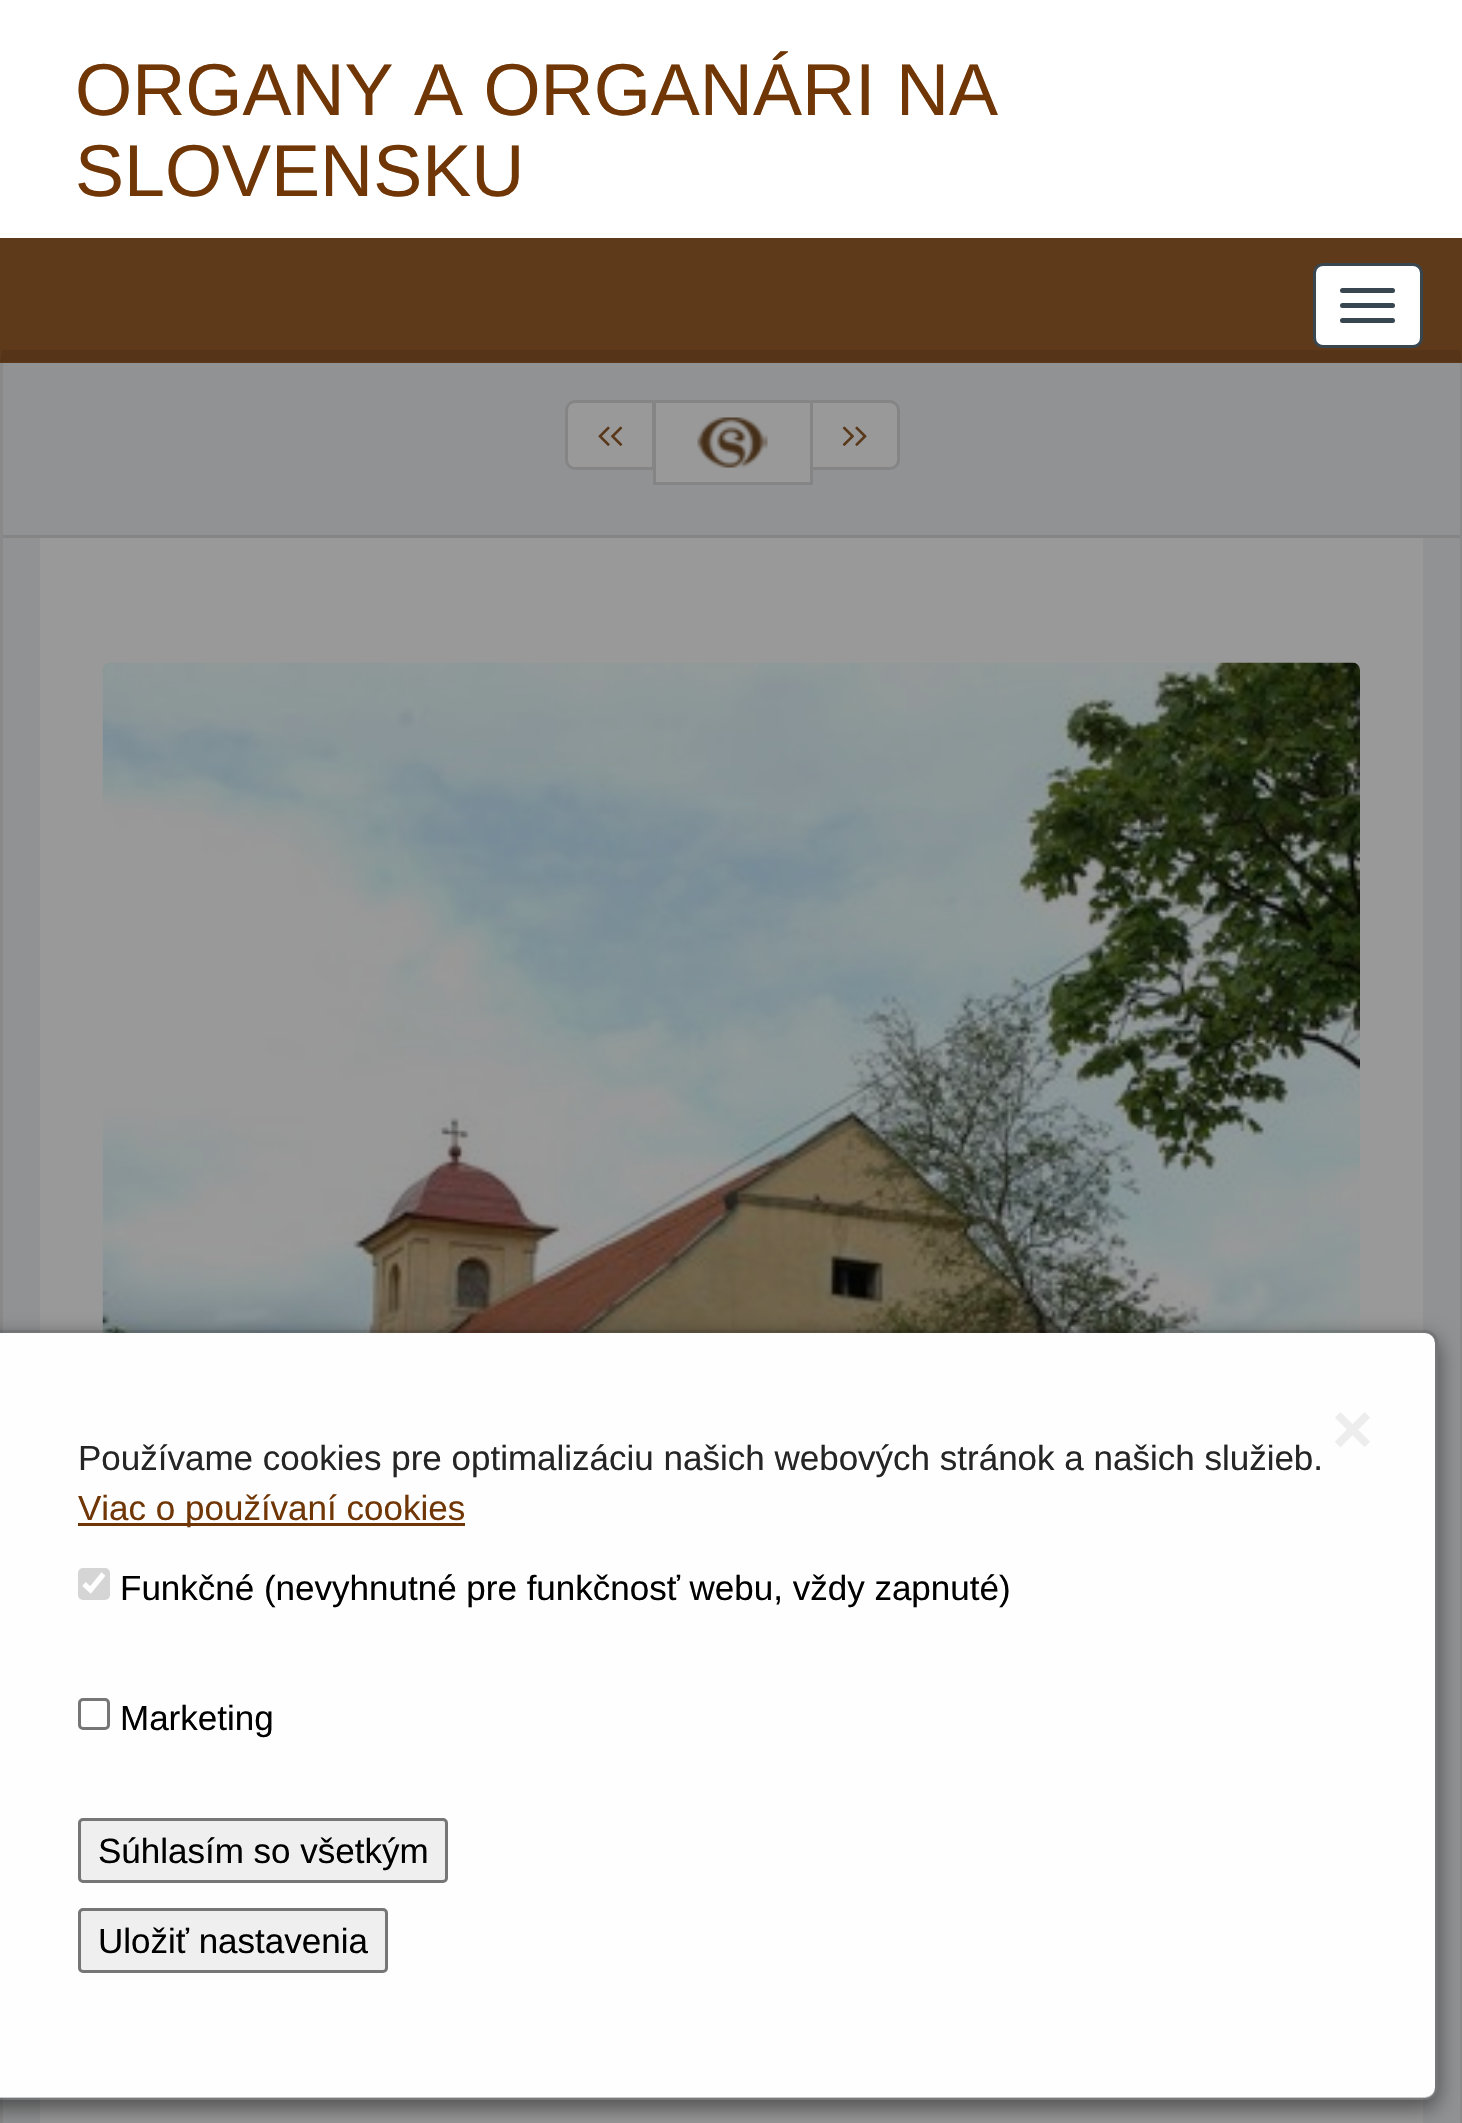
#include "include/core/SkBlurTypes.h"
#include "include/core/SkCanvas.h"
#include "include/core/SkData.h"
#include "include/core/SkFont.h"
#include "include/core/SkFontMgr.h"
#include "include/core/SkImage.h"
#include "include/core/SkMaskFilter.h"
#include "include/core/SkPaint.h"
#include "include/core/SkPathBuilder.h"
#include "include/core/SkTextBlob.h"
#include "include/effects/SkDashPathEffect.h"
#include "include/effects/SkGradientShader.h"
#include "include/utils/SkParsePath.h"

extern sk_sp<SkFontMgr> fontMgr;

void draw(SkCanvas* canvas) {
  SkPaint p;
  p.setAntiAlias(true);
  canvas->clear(SkColorSetRGB(145, 146, 147));
  p.setColor(SkColorSetRGB(137, 137, 137));
  canvas->drawRect(SkRect::MakeLTRB(1460, 363, 1462, 2123), p);
  canvas->drawRect(SkRect::MakeLTRB(0, 363, 3, 2123), p);
  p.setColor(SK_ColorWHITE);
  canvas->drawRect(SkRect::MakeLTRB(0, 0, 1462, 238), p);
  p.setColor(SkColorSetRGB(94, 58, 27));
  canvas->drawRect(SkRect::MakeLTRB(0, 238, 1462, 363), p);
  p.setColor(SkColorSetRGB(85, 52, 24));
  canvas->drawPath(SkPathBuilder().moveTo(1462, 362).lineTo(0, 362).lineTo(2, 350).lineTo(1460, 350).close().detach(), p);
  p.setColor(SK_ColorWHITE);
  canvas->drawRoundRect(SkRect::MakeLTRB(1314.5f, 264.5f, 1421.5f, 346.5f), 8.5f, 8.5f, p);
  p.setStyle(SkPaint::kStroke_Style);
  p.setStrokeWidth(3);
  p.setColor(SkColorSetRGB(56, 70, 80));
  canvas->drawRoundRect(SkRect::MakeLTRB(1314.5f, 264.5f, 1421.5f, 346.5f), 8.5f, 8.5f, p);
  p.setStyle(SkPaint::kFill_Style);
  canvas->drawRoundRect(SkRect::MakeLTRB(1340, 288, 1395, 293), 2.5f, 2.5f, p);
  canvas->drawRoundRect(SkRect::MakeLTRB(1340, 303, 1395, 308), 2.5f, 2.5f, p);
  canvas->drawRoundRect(SkRect::MakeLTRB(1340, 318, 1395, 323), 2.5f, 2.5f, p);
  p.setColor(SkColorSetRGB(133, 133, 133));
  canvas->drawRect(SkRect::MakeLTRB(3, 535, 1460, 538), p);
  p.setColor(SkColorSetRGB(153, 153, 153));
  canvas->drawPath(SkPathBuilder().moveTo(575, 401.5f).lineTo(653.5f, 401.5f).lineTo(653.5f, 468.5f).lineTo(575, 468.5f).cubicTo(570.5f, 468.5f, 566.5f, 464.5f, 566.5f, 460).lineTo(566.5f, 410).cubicTo(566.5f, 405.5f, 570.5f, 401.5f, 575, 401.5f).close().detach(), p);
  p.setStyle(SkPaint::kStroke_Style);
  p.setColor(SkColorSetRGB(133, 133, 133));
  canvas->drawPath(SkPathBuilder().moveTo(575, 401.5f).lineTo(653.5f, 401.5f).lineTo(653.5f, 468.5f).lineTo(575, 468.5f).cubicTo(570.5f, 468.5f, 566.5f, 464.5f, 566.5f, 460).lineTo(566.5f, 410).cubicTo(566.5f, 405.5f, 570.5f, 401.5f, 575, 401.5f).close().detach(), p);
  canvas->drawImageRect(SkImages::DeferredFromEncodedData(SkData::MakeFromFileName("images/1.png")), SkRect::MakeLTRB(598, 426, 610, 446), SkSamplingOptions());
  canvas->drawImageRect(SkImages::DeferredFromEncodedData(SkData::MakeFromFileName("images/2.png")), SkRect::MakeLTRB(610, 426, 623, 446), SkSamplingOptions());
  p.setStyle(SkPaint::kFill_Style);
  p.setColor(SkColorSetRGB(153, 153, 153));
  canvas->drawRect(SkRect::MakeLTRB(654.5f, 401.5f, 811.5f, 483.5f), p);
  p.setStyle(SkPaint::kStroke_Style);
  p.setColor(SkColorSetRGB(133, 133, 133));
  canvas->drawRect(SkRect::MakeLTRB(654.5f, 401.5f, 811.5f, 483.5f), p);
  canvas->drawImageRect(SkImages::DeferredFromEncodedData(SkData::MakeFromFileName("images/3.png")), SkRect::MakeLTRB(697, 417, 768, 468), SkSamplingOptions());
  p.setStyle(SkPaint::kFill_Style);
  p.setColor(SkColorSetRGB(153, 153, 153));
  canvas->drawPath(SkPathBuilder().moveTo(811.5f, 401.5f).lineTo(890, 401.5f).cubicTo(894.5f, 401.5f, 898.5f, 405.5f, 898.5f, 410).lineTo(898.5f, 460).cubicTo(898.5f, 464.5f, 894.5f, 468.5f, 890, 468.5f).lineTo(811.5f, 468.5f).close().detach(), p);
  p.setStyle(SkPaint::kStroke_Style);
  p.setColor(SkColorSetRGB(133, 133, 133));
  canvas->drawPath(SkPathBuilder().moveTo(811.5f, 401.5f).lineTo(890, 401.5f).cubicTo(894.5f, 401.5f, 898.5f, 405.5f, 898.5f, 410).lineTo(898.5f, 460).cubicTo(898.5f, 464.5f, 894.5f, 468.5f, 890, 468.5f).lineTo(811.5f, 468.5f).close().detach(), p);
  canvas->drawImageRect(SkImages::DeferredFromEncodedData(SkData::MakeFromFileName("images/4.png")), SkRect::MakeLTRB(842, 426, 855, 446), SkSamplingOptions());
  canvas->drawImageRect(SkImages::DeferredFromEncodedData(SkData::MakeFromFileName("images/5.png")), SkRect::MakeLTRB(855, 426, 867, 446), SkSamplingOptions());
  p.setStyle(SkPaint::kFill_Style);
  p.setColor(SkColorSetRGB(153, 153, 153));
  canvas->drawRect(SkRect::MakeLTRB(40, 538, 1423, 2123), p);
  canvas->drawImageRect(SkImages::DeferredFromEncodedData(SkData::MakeFromFileName("images/6.png")), SkRect::MakeLTRB(102, 662, 1360, 1333), SkSamplingOptions());
  canvas->save();
  canvas->clipPath(SkPathBuilder(SkPathFillType::kEvenOdd).moveTo(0, 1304).lineTo(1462, 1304).lineTo(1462, 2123).lineTo(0, 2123).close().moveTo(-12, 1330).lineTo(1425, 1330).cubicTo(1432, 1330, 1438, 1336, 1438, 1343).lineTo(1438, 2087).cubicTo(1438, 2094, 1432, 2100, 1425, 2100).lineTo(-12, 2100).cubicTo(-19, 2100, -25, 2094, -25, 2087).lineTo(-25, 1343).cubicTo(-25, 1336, -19, 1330, -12, 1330).close().detach(), true);
  p.setColor(SkColorSetARGB(128, 0, 0, 0));
  p.setMaskFilter(SkMaskFilter::MakeBlur(kNormal_SkBlurStyle, 11));
  canvas->drawRoundRect(SkRect::MakeLTRB(-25, 1338, 1438, 2108), 13, 13, p);
  p.setMaskFilter(nullptr);
  canvas->restore();
  p.setColor(SkColorSetRGB(254, 254, 254));
  canvas->drawRoundRect(SkRect::MakeLTRB(-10, 1333, 1435, 2098), 10, 10, p);
  p.setStyle(SkPaint::kStroke_Style);
  p.setColor(SkColorSetARGB(51, 0, 0, 0));
  canvas->drawRoundRect(SkRect::MakeLTRB(-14.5f, 1331.5f, 1436.5f, 2098.5f), 11.5f, 11.5f, p);
  p.setStyle(SkPaint::kFill_Style);
  p.setColor(SkColorSetRGB(112, 54, 5));
  canvas->drawRect(SkRect::MakeLTRB(78, 1523, 465, 1526), p);
  p.setColor(SkColorSetRGB(213, 213, 213));
  canvas->drawRoundRect(SkRect::MakeLTRB(78, 1568, 110, 1600), 5, 5, p);
  p.setStyle(SkPaint::kStroke_Style);
  p.setStrokeWidth(5.2f);
  p.setColor(SK_ColorWHITE);
  canvas->drawPath(SkPathBuilder().moveTo(84, 1584).lineTo(90.5f, 1590).lineTo(103.5f, 1574).detach(), p);
  p.setStrokeWidth(3);
  p.setColor(SkColorSetRGB(118, 118, 118));
  canvas->drawRoundRect(SkRect::MakeLTRB(79.5f, 1699.5f, 108.5f, 1728.5f), 3.5f, 3.5f, p);
  p.setStyle(SkPaint::kFill_Style);
  p.setColor(SkColorSetRGB(239, 239, 239));
  canvas->drawRoundRect(SkRect::MakeLTRB(79.5f, 1819.5f, 446.5f, 1881.5f), 3.5f, 3.5f, p);
  p.setStyle(SkPaint::kStroke_Style);
  p.setColor(SkColorSetRGB(118, 118, 118));
  canvas->drawRoundRect(SkRect::MakeLTRB(79.5f, 1819.5f, 446.5f, 1881.5f), 3.5f, 3.5f, p);
  p.setStyle(SkPaint::kFill_Style);
  p.setColor(SkColorSetRGB(239, 239, 239));
  canvas->drawRoundRect(SkRect::MakeLTRB(79.5f, 1909.5f, 386.5f, 1971.5f), 3.5f, 3.5f, p);
  p.setStyle(SkPaint::kStroke_Style);
  p.setColor(SkColorSetRGB(118, 118, 118));
  canvas->drawRoundRect(SkRect::MakeLTRB(79.5f, 1909.5f, 386.5f, 1971.5f), 3.5f, 3.5f, p);
  SkFont font1(fontMgr->matchFamilyStyle("Liberation Sans", SkFontStyle::Normal()), 73.5f);
  font1.setSubpixel(true);
  p.setStyle(SkPaint::kFill_Style);
  p.setColor(SkColorSetRGB(112, 54, 5));
  canvas->drawString("ORGANY A ORGANÁRI NA", 75, 115, font1, p);
  canvas->drawString("SLOVENSKU", 75, 196, font1, p);
  SkFont font2(fontMgr->matchFamilyStyle("Liberation Sans", SkFontStyle::Bold()), 70);
  font2.setSubpixel(true);
  p.setColor(SkColorSetRGB(237, 237, 237));
  canvas->drawString("×", 1332, 1453, font2, p);
  SkFont font3(fontMgr->matchFamilyStyle("Liberation Sans", SkFontStyle::Normal()), 35);
  font3.setSubpixel(true);
  p.setColor(SkColorSetRGB(37, 37, 37));
  canvas->drawString("Používame cookies pre optimalizáciu našich webových stránok a našich služieb.", 78, 1470, font3, p);
  p.setColor(SkColorSetRGB(112, 54, 5));
  canvas->drawString("Viac o používaní cookies", 78, 1520, font3, p);
  p.setColor(SK_ColorBLACK);
  canvas->drawString("Funkčné (nevyhnutné pre funkčnosť webu, vždy zapnuté)", 120, 1600, font3, p);
  canvas->drawString("Marketing", 120, 1730, font3, p);
  canvas->drawString("Súhlasím so všetkým", 98, 1863, font3, p);
  canvas->drawString("Uložiť nastavenia", 98, 1953, font3, p);
}
